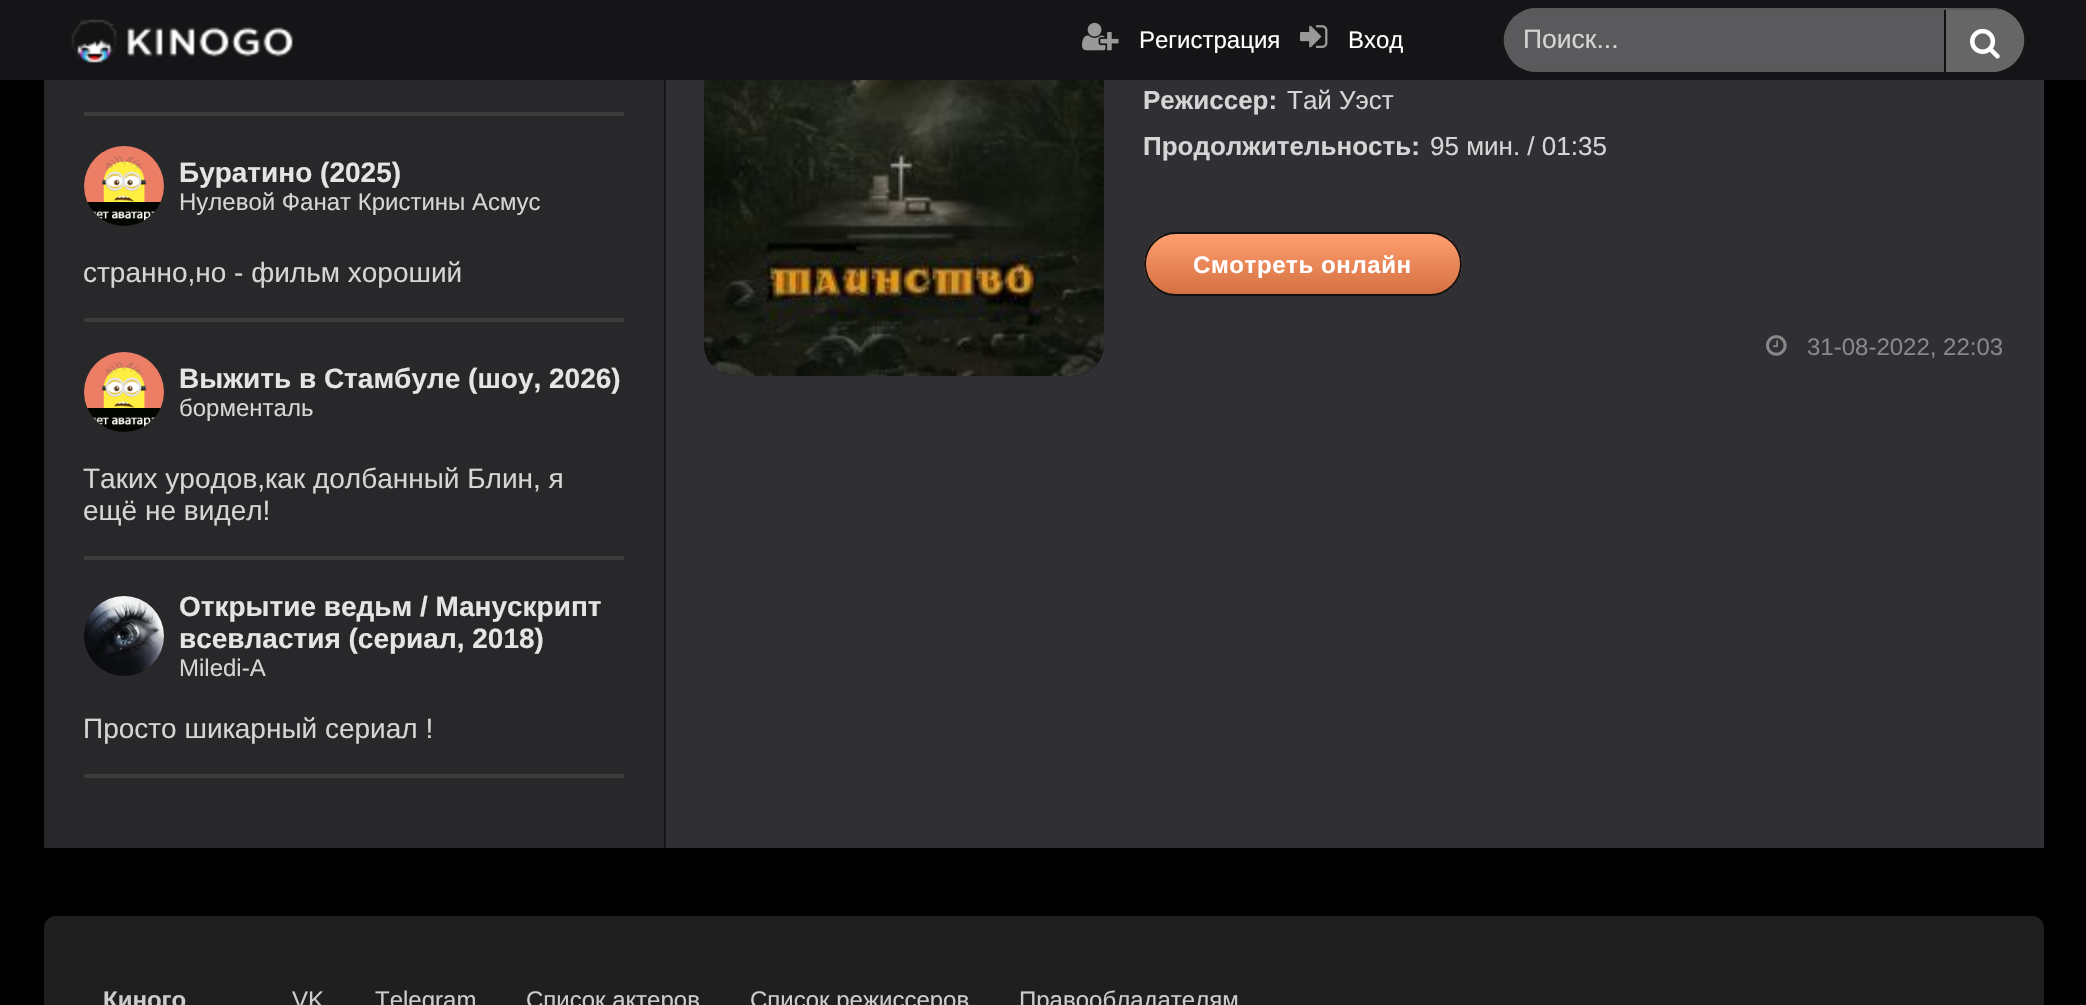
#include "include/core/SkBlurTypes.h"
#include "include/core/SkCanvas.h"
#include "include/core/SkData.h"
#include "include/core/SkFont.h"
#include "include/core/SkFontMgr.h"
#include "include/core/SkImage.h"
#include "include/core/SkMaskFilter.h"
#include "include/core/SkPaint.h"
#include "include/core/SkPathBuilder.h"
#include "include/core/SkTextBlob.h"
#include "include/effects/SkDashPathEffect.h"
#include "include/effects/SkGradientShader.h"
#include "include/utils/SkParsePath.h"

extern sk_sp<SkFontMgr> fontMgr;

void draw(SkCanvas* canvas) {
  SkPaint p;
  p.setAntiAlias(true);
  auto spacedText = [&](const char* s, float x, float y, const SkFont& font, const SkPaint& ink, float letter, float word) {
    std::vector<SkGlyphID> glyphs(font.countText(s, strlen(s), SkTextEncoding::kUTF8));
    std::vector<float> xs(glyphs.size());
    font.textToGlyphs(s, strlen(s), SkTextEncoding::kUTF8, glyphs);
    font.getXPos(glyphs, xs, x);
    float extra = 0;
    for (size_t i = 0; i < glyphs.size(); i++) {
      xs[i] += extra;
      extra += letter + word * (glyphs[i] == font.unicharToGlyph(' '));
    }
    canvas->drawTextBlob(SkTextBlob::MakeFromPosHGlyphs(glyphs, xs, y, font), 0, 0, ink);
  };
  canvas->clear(SK_ColorBLACK);
  p.setColor(SkColorSetRGB(48, 47, 51));
  canvas->drawRect(SkRect::MakeLTRB(666, 80, 2044, 848), p);
  p.setColor(SK_ColorBLACK);
  canvas->drawRoundRect(SkRect::MakeLTRB(704, -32, 1104, 376), 32, 32, p);
  p.setColor(SkColorSetRGB(21, 20, 22));
  canvas->drawRect(SkRect::MakeLTRB(0, 0, 2086, 80), p);
  canvas->drawImageRect(SkImages::DeferredFromEncodedData(SkData::MakeFromFileName("images/1.png")), SkRect::MakeLTRB(71, 19, 293, 63), SkSamplingOptions());
  canvas->drawImageRect(SkImages::DeferredFromEncodedData(SkData::MakeFromFileName("images/2.png")), SkRect::MakeLTRB(1082, 22, 1119, 51), SkSamplingOptions());
  canvas->drawImageRect(SkImages::DeferredFromEncodedData(SkData::MakeFromFileName("images/3.png")), SkRect::MakeLTRB(1300, 25, 1328, 48), SkSamplingOptions());
  p.setColor(SkColorSetRGB(90, 90, 93));
  canvas->drawRoundRect(SkRect::MakeLTRB(1504, 8, 2024, 72), 32, 32, p);
  p.setColor(SkColorSetRGB(88, 88, 88));
  canvas->drawPath(SkPathBuilder(SkPathFillType::kEvenOdd).moveTo(1536, 72).lineTo(1992, 72).cubicTo(1996, 72, 2000, 71, 2003, 70).lineTo(1525, 70).cubicTo(1528, 71, 1532, 72, 1536, 72).close().moveTo(1506, 51).cubicTo(1503, 44, 1503, 36, 1506, 29).close().moveTo(1536, 8).cubicTo(1532, 8, 1528, 9, 1525, 10).lineTo(2003, 10).cubicTo(2000, 9, 1996, 8, 1992, 8).close().moveTo(2022, 29).lineTo(2022, 51).cubicTo(2025, 44, 2025, 36, 2022, 29).close().detach(), p);
  canvas->save();
  canvas->clipPath(SkPathBuilder().moveTo(1536, 8).lineTo(1992, 8).cubicTo(2009.5f, 8, 2024, 22.5f, 2024, 40).cubicTo(2024, 57.5f, 2009.5f, 72, 1992, 72).lineTo(1536, 72).cubicTo(1518.5f, 72, 1504, 57.5f, 1504, 40).cubicTo(1504, 22.5f, 1518.5f, 8, 1536, 8).close().detach(), true);
  p.setColor(SkColorSetRGB(102, 102, 102));
  canvas->drawPath(SkPathBuilder().moveTo(1944, 10).lineTo(2018, 10).cubicTo(2021.5f, 10, 2024, 12.5f, 2024, 16).lineTo(2024, 68).cubicTo(2024, 71.5f, 2021.5f, 74, 2018, 74).lineTo(1944, 74).close().detach(), p);
  canvas->restore();
  p.setColor(SkColorSetRGB(17, 17, 17));
  canvas->drawRect(SkRect::MakeLTRB(1944, 10, 1946, 72), p);
  canvas->drawImageRect(SkImages::DeferredFromEncodedData(SkData::MakeFromFileName("images/4.png")), SkRect::MakeLTRB(1970, 28, 2000, 59), SkSamplingOptions());
  p.setColor(SkColorSetRGB(40, 39, 42));
  canvas->drawRect(SkRect::MakeLTRB(44, 80, 664, 848), p);
  p.setColor(SkColorSetRGB(23, 22, 24));
  canvas->drawRect(SkRect::MakeLTRB(664, 80, 666, 848), p);
  canvas->drawImageRect(SkImages::DeferredFromEncodedData(SkData::MakeFromFileName("images/5.png")), SkRect::MakeLTRB(704, 80, 1104, 376), SkSamplingOptions());
  canvas->save();
  canvas->clipPath(SkPathBuilder().moveTo(1176, 232).lineTo(1430, 232).cubicTo(1447.5f, 232, 1462, 246.5f, 1462, 264).cubicTo(1462, 281.5f, 1447.5f, 296, 1430, 296).lineTo(1176, 296).cubicTo(1158.5f, 296, 1144, 281.5f, 1144, 264).cubicTo(1144, 246.5f, 1158.5f, 232, 1176, 232).close().detach(), true);
  {
    const SkColor colors[] = {SkColorSetRGB(255, 158, 112), SkColorSetRGB(212, 113, 65)};
    const float stops[] = {0, 1};
    const SkPoint ends[] = {{1303, 234}, {1303, 294}};
    p.setShader(SkGradientShader::MakeLinear(ends, colors, stops, 2, SkTileMode::kClamp));
    p.setAlpha(255);
  }
  canvas->drawRect(SkRect::MakeLTRB(1144, 234, 1462, 294), p);
  canvas->restore();
  p.setStyle(SkPaint::kStroke_Style);
  p.setStrokeWidth(2);
  p.setShader(nullptr);
  p.setColor(SkColorSetRGB(17, 17, 17));
  canvas->drawRoundRect(SkRect::MakeLTRB(1145, 233, 1461, 295), 31, 31, p);
  canvas->drawImageRect(SkImages::DeferredFromEncodedData(SkData::MakeFromFileName("images/6.png")), SkRect::MakeLTRB(1766, 335, 1787, 356), SkSamplingOptions());
  p.setStyle(SkPaint::kFill_Style);
  p.setColor(SkColorSetRGB(60, 60, 60));
  canvas->drawRect(SkRect::MakeLTRB(84, 112, 624, 116), p);
  canvas->drawRect(SkRect::MakeLTRB(84, 318, 624, 322), p);
  canvas->drawImageRect(SkImages::DeferredFromEncodedData(SkData::MakeFromFileName("images/7.png")), SkRect::MakeLTRB(84, 146, 164, 226), SkSamplingOptions());
  canvas->drawRect(SkRect::MakeLTRB(84, 556, 624, 560), p);
  canvas->drawImageRect(SkImages::DeferredFromEncodedData(SkData::MakeFromFileName("images/7.png")), SkRect::MakeLTRB(84, 352, 164, 432), SkSamplingOptions());
  canvas->drawRect(SkRect::MakeLTRB(84, 774, 624, 778), p);
  canvas->drawImageRect(SkImages::DeferredFromEncodedData(SkData::MakeFromFileName("images/8.png")), SkRect::MakeLTRB(84, 596, 164, 676), SkSamplingOptions());
  p.setColor(SkColorSetRGB(31, 31, 31));
  canvas->drawPath(SkPathBuilder().moveTo(56, 916).lineTo(2032, 916).cubicTo(2038.5f, 916, 2044, 921.5f, 2044, 928).lineTo(2044, 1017).lineTo(44, 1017).lineTo(44, 928).cubicTo(44, 921.5f, 49.5f, 916, 56, 916).close().detach(), p);
  SkFont font1(fontMgr->matchFamilyStyle("Liberation Sans", SkFontStyle::Normal()), 24);
  font1.setSubpixel(true);
  p.setColor(SK_ColorWHITE);
  canvas->drawString("Регистрация", 1139, 48, font1, p);
  canvas->drawString("Вход", 1348, 48, font1, p);
  SkFont font2(fontMgr->matchFamilyStyle("Liberation Sans", SkFontStyle::Normal()), 26.5f);
  font2.setSubpixel(true);
  p.setColor(SkColorSetRGB(213, 213, 213));
  canvas->drawString("Поиск...", 1523, 48, font2, p);
  SkFont font3(fontMgr->matchFamilyStyle("Liberation Sans", SkFontStyle::Bold()), 26);
  font3.setSubpixel(true);
  canvas->drawString("Режиссер:", 1143, 109, font3, p);
  SkFont font4(fontMgr->matchFamilyStyle("Liberation Sans", SkFontStyle::Normal()), 26);
  font4.setSubpixel(true);
  canvas->drawString("Тай Уэст", 1287, 109, font4, p);
  canvas->drawString("Продолжительность:", 1143, 155, font3, p);
  canvas->drawString("95 мин. / 01:35", 1430, 155, font4, p);
  SkFont font5(fontMgr->matchFamilyStyle("Liberation Sans", SkFontStyle::Bold()), 24);
  font5.setSubpixel(true);
  p.setColor(SK_ColorWHITE);
  spacedText("Смотреть онлайн", 1193, 273, font5, p, 0.6f, 0);
  p.setColor(SkColorSetRGB(136, 136, 136));
  canvas->drawString("31-08-2022, 22:03", 1807, 355, font1, p);
  SkFont font6(fontMgr->matchFamilyStyle("Liberation Sans", SkFontStyle::Bold()), 28);
  font6.setSubpixel(true);
  p.setColor(SkColorSetRGB(229, 229, 229));
  canvas->drawString("Буратино (2025)", 179, 182, font6, p);
  p.setColor(SkColorSetRGB(213, 213, 213));
  canvas->drawString("Нулевой Фанат Кристины Асмус", 179, 210, font1, p);
  SkFont font7(fontMgr->matchFamilyStyle("Liberation Sans", SkFontStyle::Normal()), 28);
  font7.setSubpixel(true);
  canvas->drawString("странно,но - фильм хороший", 83, 282, font7, p);
  p.setColor(SkColorSetRGB(229, 229, 229));
  canvas->drawString("Выжить в Стамбуле (шоу, 2026)", 179, 388, font6, p);
  p.setColor(SkColorSetRGB(213, 213, 213));
  canvas->drawString("борменталь", 179, 416, font1, p);
  canvas->drawString("Таких уродов,как долбанный Блин, я", 83, 488, font7, p);
  canvas->drawString("ещё не видел!", 83, 520, font7, p);
  p.setColor(SkColorSetRGB(229, 229, 229));
  canvas->drawString("Открытие ведьм / Манускрипт", 179, 616, font6, p);
  canvas->drawString("всевластия (сериал, 2018)", 179, 648, font6, p);
  p.setColor(SkColorSetRGB(213, 213, 213));
  canvas->drawString("Miledi-A", 179, 676, font1, p);
  canvas->drawString("Просто шикарный сериал !", 83, 738, font7, p);
  p.setColor(SkColorSetRGB(204, 204, 204));
  canvas->drawString("Киного", 103, 1008, font5, p);
  canvas->drawString("VK", 292, 1008, font1, p);
  canvas->drawString("Telegram", 375, 1008, font1, p);
  canvas->drawString("Список актеров", 526, 1008, font1, p);
  canvas->drawString("Список режиссеров", 750, 1008, font1, p);
  canvas->drawString("Правообладателям", 1019, 1008, font1, p);
}
